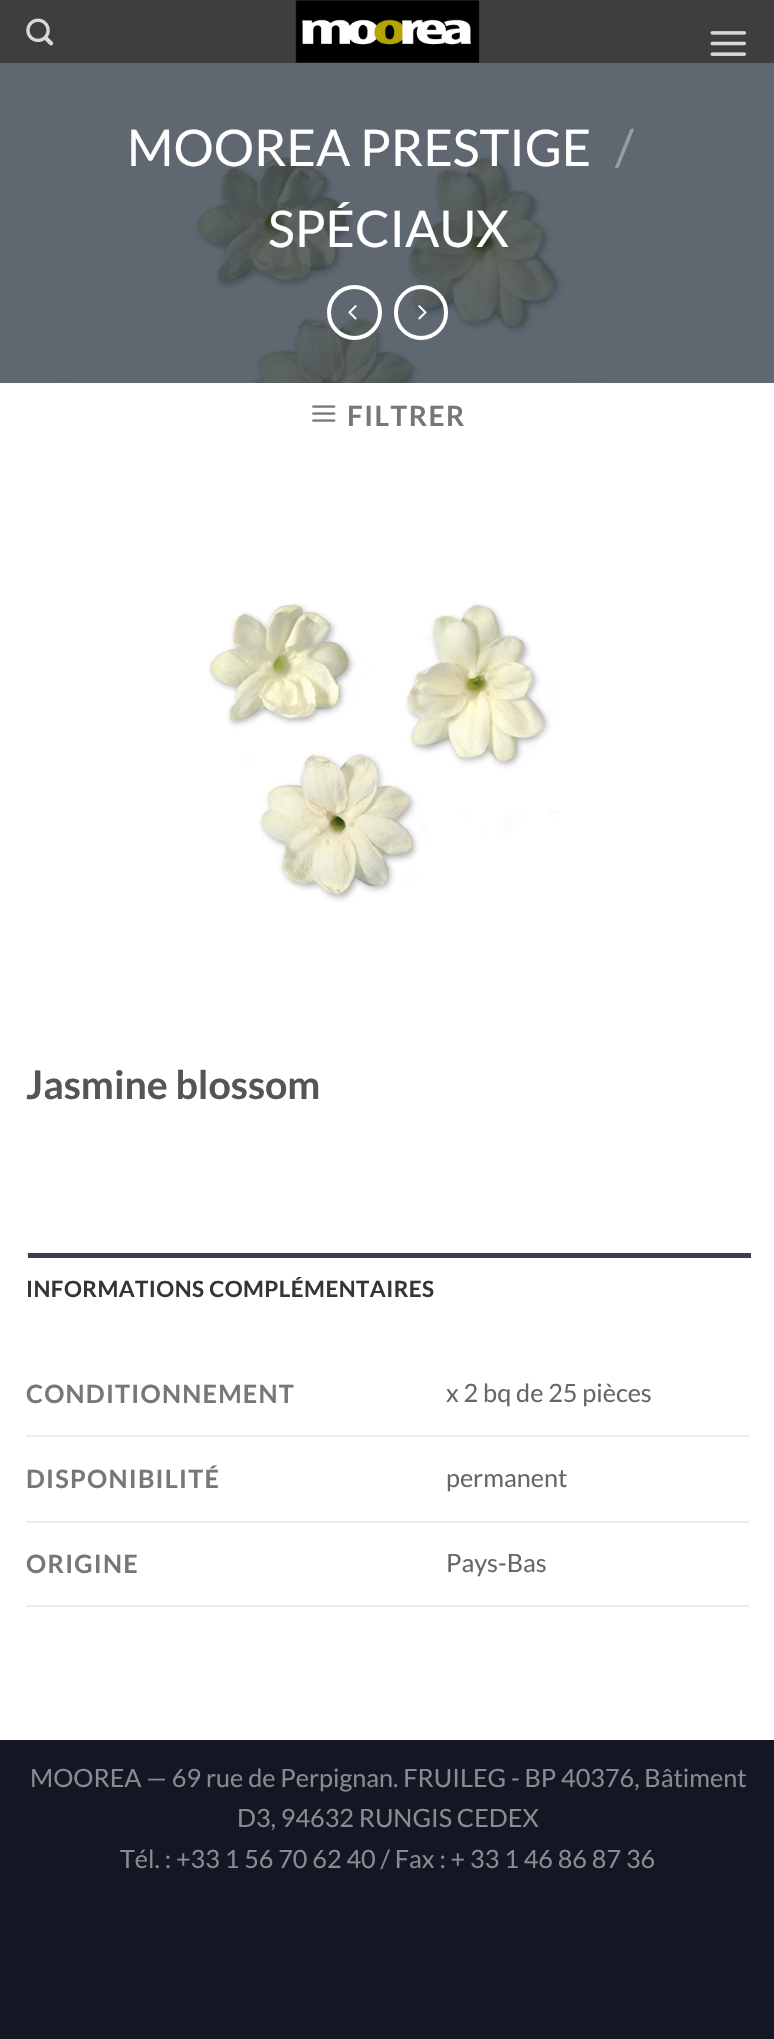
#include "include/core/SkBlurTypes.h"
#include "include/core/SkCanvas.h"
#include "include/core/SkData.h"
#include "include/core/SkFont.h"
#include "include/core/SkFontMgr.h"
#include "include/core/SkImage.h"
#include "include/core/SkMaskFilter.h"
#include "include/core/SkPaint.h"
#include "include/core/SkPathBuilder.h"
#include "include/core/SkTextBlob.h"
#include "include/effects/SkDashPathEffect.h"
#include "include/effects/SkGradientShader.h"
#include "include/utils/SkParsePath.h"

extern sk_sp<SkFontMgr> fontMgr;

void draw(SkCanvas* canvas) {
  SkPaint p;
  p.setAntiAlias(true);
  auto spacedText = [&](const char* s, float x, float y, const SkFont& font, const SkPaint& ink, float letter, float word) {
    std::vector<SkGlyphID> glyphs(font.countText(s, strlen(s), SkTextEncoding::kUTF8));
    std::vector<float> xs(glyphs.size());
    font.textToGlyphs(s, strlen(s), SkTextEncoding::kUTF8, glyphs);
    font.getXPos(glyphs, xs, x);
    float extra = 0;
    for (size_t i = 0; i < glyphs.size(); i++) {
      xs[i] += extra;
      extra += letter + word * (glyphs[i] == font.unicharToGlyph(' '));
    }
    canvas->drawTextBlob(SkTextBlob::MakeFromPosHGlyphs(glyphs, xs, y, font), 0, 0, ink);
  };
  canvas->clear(SkColorSetRGB(19, 23, 35));
  p.setColor(SkColorSetRGB(62, 62, 62));
  canvas->drawRect(SkRect::MakeLTRB(0, 0, 774, 63), p);
  canvas->drawImageRect(SkImages::DeferredFromEncodedData(SkData::MakeFromFileName("images/1.png")), SkRect::MakeLTRB(26, 18, 54, 46), SkSamplingOptions());
  canvas->drawImageRect(SkImages::DeferredFromEncodedData(SkData::MakeFromFileName("images/2.png")), SkRect::MakeLTRB(295, 0, 480, 63), SkSamplingOptions());
  canvas->drawImageRect(SkImages::DeferredFromEncodedData(SkData::MakeFromFileName("images/3.png")), SkRect::MakeLTRB(710, 31, 746, 56), SkSamplingOptions());
  canvas->drawImageRect(SkImages::DeferredFromEncodedData(SkData::MakeFromFileName("images/4.png")), SkRect::MakeLTRB(0, 63, 774, 383), SkSamplingOptions());
  p.setStyle(SkPaint::kStroke_Style);
  p.setStrokeWidth(4);
  p.setColor(SK_ColorWHITE);
  canvas->drawCircle(354.5f, 312.5f, 25.5f, p);
  canvas->drawImageRect(SkImages::DeferredFromEncodedData(SkData::MakeFromFileName("images/5.png")), SkRect::MakeLTRB(348, 305, 357, 320), SkSamplingOptions());
  canvas->drawRoundRect(SkRect::MakeLTRB(396, 287, 446, 338), 25, 25, p);
  canvas->drawImageRect(SkImages::DeferredFromEncodedData(SkData::MakeFromFileName("images/6.png")), SkRect::MakeLTRB(418, 305, 427, 320), SkSamplingOptions());
  p.setStyle(SkPaint::kFill_Style);
  canvas->drawRect(SkRect::MakeLTRB(0, 383, 774, 1740), p);
  canvas->drawImageRect(SkImages::DeferredFromEncodedData(SkData::MakeFromFileName("images/7.png")), SkRect::MakeLTRB(312, 405, 336, 422), SkSamplingOptions());
  canvas->drawImageRect(SkImages::DeferredFromEncodedData(SkData::MakeFromFileName("images/8.png")), SkRect::MakeLTRB(208, 602, 559, 902), SkSamplingOptions());
  p.setColor(SkColorSetRGB(236, 236, 236));
  canvas->drawRect(SkRect::MakeLTRB(26, 1253, 28, 1255), p);
  p.setColor(SkColorSetRGB(59, 64, 77));
  canvas->drawRect(SkRect::MakeLTRB(28, 1253, 751, 1258), p);
  p.setColor(SkColorSetRGB(236, 236, 236));
  canvas->drawRect(SkRect::MakeLTRB(26, 1435, 749, 1437), p);
  canvas->drawRect(SkRect::MakeLTRB(26, 1521, 749, 1523), p);
  canvas->drawRect(SkRect::MakeLTRB(26, 1605, 749, 1607), p);
  SkFont font1(fontMgr->matchFamilyStyle("Lato", SkFontStyle::Normal()), 50.5f);
  font1.setSubpixel(true);
  p.setColor(SK_ColorWHITE);
  canvas->drawString("MOOREA PRESTIGE", 127, 166, font1, p);
  p.setColor(SkColorSetRGB(151, 157, 162));
  canvas->drawString("/", 615, 166, font1, p);
  p.setColor(SK_ColorWHITE);
  canvas->drawString("SPÉCIAUX", 268, 247, font1, p);
  SkFont font2(fontMgr->matchFamilyStyle("Lato", SkFontStyle::Bold()), 28);
  font2.setSubpixel(true);
  p.setColor(SkColorSetRGB(119, 119, 119));
  spacedText("FILTRER", 347, 426, font2, p, 1.5f, 0);
  SkFont font3(fontMgr->matchFamilyStyle("Lato", SkFontStyle::Bold()), 39.25f);
  font3.setSubpixel(true);
  p.setColor(SkColorSetRGB(85, 85, 85));
  canvas->drawString("Jasmine blossom", 26, 1099, font3, p);
  SkFont font4(fontMgr->matchFamilyStyle("Lato", SkFontStyle::Bold()), 22.4f);
  font4.setSubpixel(true);
  p.setColor(SkColorSetRGB(53, 53, 53));
  spacedText("INFORMATIONS COMPLÉMENTAIRES", 26, 1297, font4, p, 0.45f, 0);
  SkFont font5(fontMgr->matchFamilyStyle("Lato", SkFontStyle::Bold()), 25.2f);
  font5.setSubpixel(true);
  p.setColor(SkColorSetRGB(119, 119, 119));
  spacedText("CONDITIONNEMENT", 26, 1403, font5, p, 1.25f, 0);
  SkFont font6(fontMgr->matchFamilyStyle("Lato", SkFontStyle::Normal()), 25.2f);
  font6.setSubpixel(true);
  p.setColor(SkColorSetRGB(102, 102, 102));
  canvas->drawString("x 2 bq de 25 pièces", 446, 1402, font6, p);
  p.setColor(SkColorSetRGB(119, 119, 119));
  spacedText("DISPONIBILITÉ", 26, 1488, font5, p, 1.25f, 0);
  p.setColor(SkColorSetRGB(102, 102, 102));
  canvas->drawString("permanent", 446, 1487, font6, p);
  p.setColor(SkColorSetRGB(119, 119, 119));
  spacedText("ORIGINE", 26, 1573, font5, p, 1.25f, 0);
  p.setColor(SkColorSetRGB(102, 102, 102));
  canvas->drawString("Pays-Bas", 446, 1572, font6, p);
  p.setColor(SkColorSetRGB(137, 139, 145));
  canvas->drawString("MOOREA — 69 rue de Perpignan. FRUILEG - BP 40376, Bâtiment", 30, 1787, font6, p);
  canvas->drawString("D3, 94632 RUNGIS CEDEX", 237, 1827, font6, p);
  canvas->drawString("Tél. : +33 1 56 70 62 40 / Fax : + 33 1 46 86 87 36", 120, 1868, font6, p);
}
